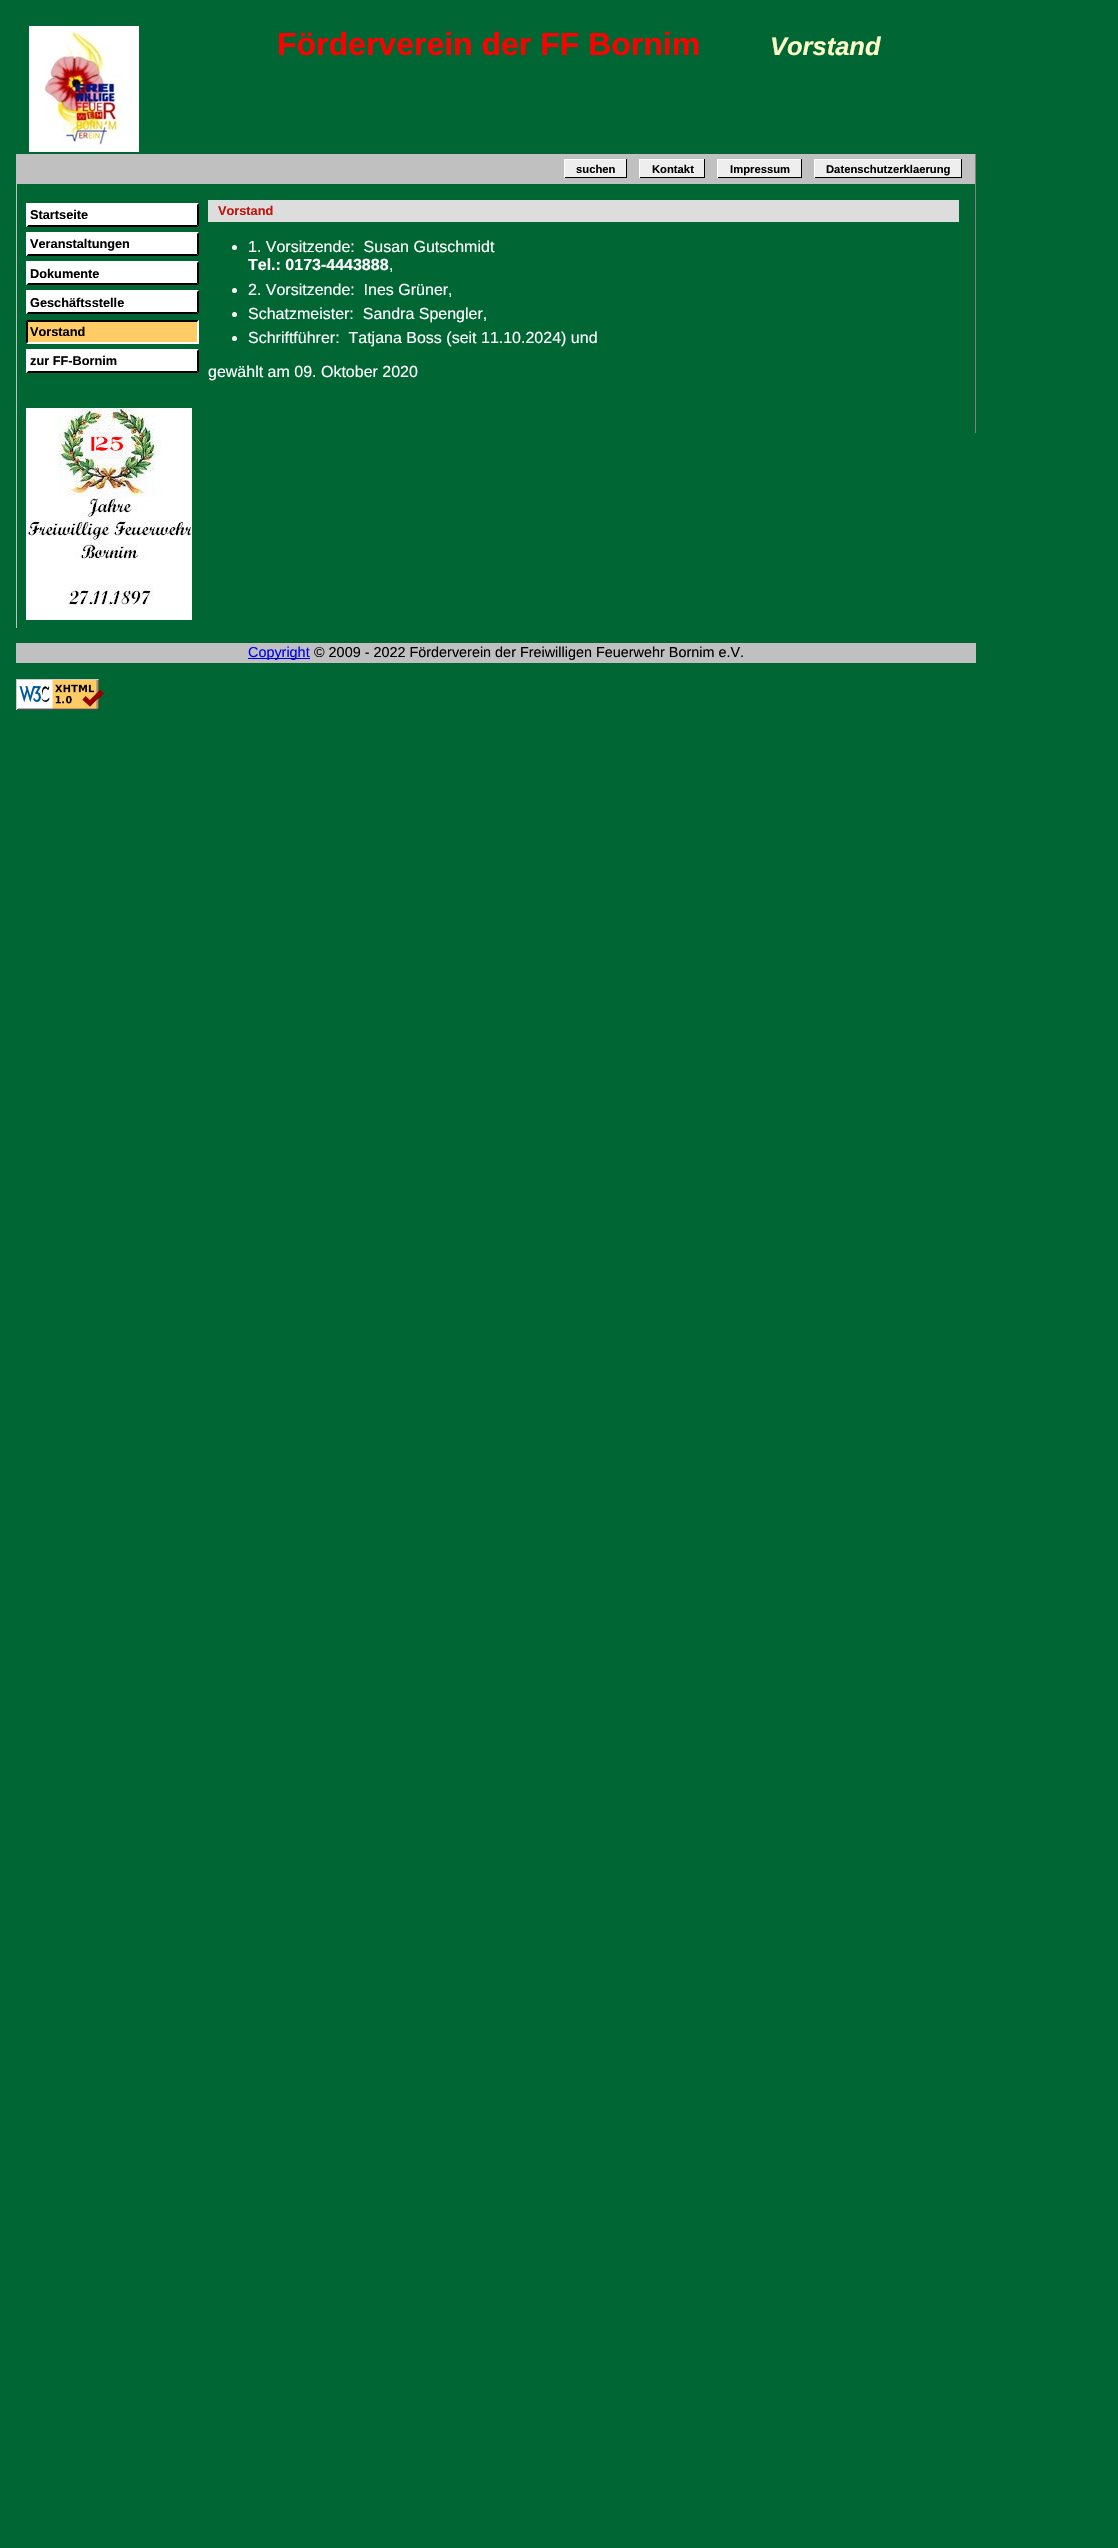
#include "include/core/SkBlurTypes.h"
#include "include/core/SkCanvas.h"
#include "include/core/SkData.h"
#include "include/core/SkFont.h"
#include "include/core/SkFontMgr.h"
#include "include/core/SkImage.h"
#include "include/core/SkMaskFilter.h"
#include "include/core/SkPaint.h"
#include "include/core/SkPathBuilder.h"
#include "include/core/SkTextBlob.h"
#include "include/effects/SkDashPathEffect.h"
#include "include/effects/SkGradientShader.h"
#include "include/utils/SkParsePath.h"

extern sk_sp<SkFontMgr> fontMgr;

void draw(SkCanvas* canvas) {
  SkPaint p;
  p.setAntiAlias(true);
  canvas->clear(SkColorSetRGB(0, 102, 51));
  canvas->drawImageRect(SkImages::DeferredFromEncodedData(SkData::MakeFromFileName("images/1.png")), SkRect::MakeLTRB(29, 26, 139, 152), SkSamplingOptions());
  p.setColor(SkColorSetRGB(192, 192, 192));
  canvas->drawRect(SkRect::MakeLTRB(16, 154, 975, 184), p);
  p.setColor(SkColorSetRGB(128, 128, 128));
  canvas->drawRect(SkRect::MakeLTRB(975, 154, 976, 433), p);
  p.setColor(SkColorSetRGB(238, 238, 238));
  canvas->drawRect(SkRect::MakeLTRB(565, 160, 626, 177), p);
  p.setColor(SK_ColorWHITE);
  canvas->drawRect(SkRect::MakeLTRB(564, 159, 627, 160), p);
  p.setColor(SK_ColorBLACK);
  canvas->drawRect(SkRect::MakeLTRB(626, 159, 627, 178), p);
  canvas->drawRect(SkRect::MakeLTRB(564, 177, 627, 178), p);
  p.setColor(SK_ColorWHITE);
  canvas->drawRect(SkRect::MakeLTRB(564, 159, 565, 178), p);
  p.setColor(SkColorSetRGB(238, 238, 238));
  canvas->drawRect(SkRect::MakeLTRB(640, 160, 704, 177), p);
  p.setColor(SK_ColorWHITE);
  canvas->drawRect(SkRect::MakeLTRB(639, 159, 705, 160), p);
  p.setColor(SK_ColorBLACK);
  canvas->drawRect(SkRect::MakeLTRB(704, 159, 705, 178), p);
  canvas->drawRect(SkRect::MakeLTRB(639, 177, 705, 178), p);
  p.setColor(SK_ColorWHITE);
  canvas->drawRect(SkRect::MakeLTRB(639, 159, 640, 178), p);
  p.setColor(SkColorSetRGB(238, 238, 238));
  canvas->drawRect(SkRect::MakeLTRB(718, 160, 801, 177), p);
  p.setColor(SK_ColorWHITE);
  canvas->drawRect(SkRect::MakeLTRB(717, 159, 802, 160), p);
  p.setColor(SK_ColorBLACK);
  canvas->drawRect(SkRect::MakeLTRB(801, 159, 802, 178), p);
  canvas->drawRect(SkRect::MakeLTRB(717, 177, 802, 178), p);
  p.setColor(SK_ColorWHITE);
  canvas->drawRect(SkRect::MakeLTRB(717, 159, 718, 178), p);
  p.setColor(SkColorSetRGB(238, 238, 238));
  canvas->drawRect(SkRect::MakeLTRB(815, 160, 961, 177), p);
  p.setColor(SK_ColorWHITE);
  canvas->drawRect(SkRect::MakeLTRB(814, 159, 962, 160), p);
  p.setColor(SK_ColorBLACK);
  canvas->drawRect(SkRect::MakeLTRB(961, 159, 962, 178), p);
  canvas->drawRect(SkRect::MakeLTRB(814, 177, 962, 178), p);
  p.setColor(SK_ColorWHITE);
  canvas->drawRect(SkRect::MakeLTRB(814, 159, 815, 178), p);
  p.setColor(SkColorSetRGB(192, 192, 192));
  canvas->drawRect(SkRect::MakeLTRB(16, 184, 17, 628), p);
  p.setColor(SK_ColorWHITE);
  canvas->drawRect(SkRect::MakeLTRB(26, 203, 199, 227), p);
  p.setColor(SK_ColorBLACK);
  canvas->drawPath(SkPathBuilder().moveTo(199, 203).lineTo(199, 227).lineTo(197, 225).lineTo(197, 205).close().detach(), p);
  canvas->drawPath(SkPathBuilder().moveTo(199, 227).lineTo(26, 227).lineTo(28, 225).lineTo(197, 225).close().detach(), p);
  p.setColor(SK_ColorWHITE);
  canvas->drawPath(SkPathBuilder().moveTo(26, 227).lineTo(26, 203).lineTo(28, 205).lineTo(28, 225).close().detach(), p);
  canvas->drawRect(SkRect::MakeLTRB(26, 232, 199, 256), p);
  p.setColor(SK_ColorBLACK);
  canvas->drawPath(SkPathBuilder().moveTo(199, 232).lineTo(199, 256).lineTo(197, 254).lineTo(197, 234).close().detach(), p);
  canvas->drawPath(SkPathBuilder().moveTo(199, 256).lineTo(26, 256).lineTo(28, 254).lineTo(197, 254).close().detach(), p);
  p.setColor(SK_ColorWHITE);
  canvas->drawPath(SkPathBuilder().moveTo(26, 256).lineTo(26, 232).lineTo(28, 234).lineTo(28, 254).close().detach(), p);
  canvas->drawRect(SkRect::MakeLTRB(26, 261, 199, 285), p);
  p.setColor(SK_ColorBLACK);
  canvas->drawPath(SkPathBuilder().moveTo(199, 261).lineTo(199, 285).lineTo(197, 283).lineTo(197, 263).close().detach(), p);
  canvas->drawPath(SkPathBuilder().moveTo(199, 285).lineTo(26, 285).lineTo(28, 283).lineTo(197, 283).close().detach(), p);
  p.setColor(SK_ColorWHITE);
  canvas->drawPath(SkPathBuilder().moveTo(26, 285).lineTo(26, 261).lineTo(28, 263).lineTo(28, 283).close().detach(), p);
  canvas->drawRect(SkRect::MakeLTRB(26, 290, 199, 314), p);
  p.setColor(SK_ColorBLACK);
  canvas->drawPath(SkPathBuilder().moveTo(199, 290).lineTo(199, 314).lineTo(197, 312).lineTo(197, 292).close().detach(), p);
  canvas->drawPath(SkPathBuilder().moveTo(199, 314).lineTo(26, 314).lineTo(28, 312).lineTo(197, 312).close().detach(), p);
  p.setColor(SK_ColorWHITE);
  canvas->drawPath(SkPathBuilder().moveTo(26, 314).lineTo(26, 290).lineTo(28, 292).lineTo(28, 312).close().detach(), p);
  p.setColor(SkColorSetRGB(255, 204, 102));
  canvas->drawRect(SkRect::MakeLTRB(26, 320, 199, 344), p);
  p.setColor(SK_ColorBLACK);
  canvas->drawPath(SkPathBuilder().moveTo(26, 320).lineTo(199, 320).lineTo(197, 322).lineTo(28, 322).close().detach(), p);
  p.setColor(SK_ColorWHITE);
  canvas->drawPath(SkPathBuilder().moveTo(199, 320).lineTo(199, 344).lineTo(197, 342).lineTo(197, 322).close().detach(), p);
  canvas->drawPath(SkPathBuilder().moveTo(199, 344).lineTo(26, 344).lineTo(28, 342).lineTo(197, 342).close().detach(), p);
  p.setColor(SK_ColorBLACK);
  canvas->drawPath(SkPathBuilder().moveTo(26, 344).lineTo(26, 320).lineTo(28, 322).lineTo(28, 342).close().detach(), p);
  p.setColor(SK_ColorWHITE);
  canvas->drawRect(SkRect::MakeLTRB(26, 349, 199, 373), p);
  p.setColor(SK_ColorBLACK);
  canvas->drawPath(SkPathBuilder().moveTo(199, 349).lineTo(199, 373).lineTo(197, 371).lineTo(197, 351).close().detach(), p);
  canvas->drawPath(SkPathBuilder().moveTo(199, 373).lineTo(26, 373).lineTo(28, 371).lineTo(197, 371).close().detach(), p);
  p.setColor(SK_ColorWHITE);
  canvas->drawPath(SkPathBuilder().moveTo(26, 373).lineTo(26, 349).lineTo(28, 351).lineTo(28, 371).close().detach(), p);
  canvas->drawImageRect(SkImages::DeferredFromEncodedData(SkData::MakeFromFileName("images/2.png")), SkRect::MakeLTRB(26, 408, 192, 620), SkSamplingOptions());
  p.setColor(SkColorSetRGB(221, 221, 221));
  canvas->drawRect(SkRect::MakeLTRB(208, 200, 959, 222), p);
  p.setColor(SK_ColorWHITE);
  canvas->drawCircle(234.5f, 247.5f, 2.5f, p);
  canvas->drawCircle(234.5f, 290.5f, 2.5f, p);
  canvas->drawCircle(234.5f, 314.5f, 2.5f, p);
  canvas->drawCircle(234.5f, 338.5f, 2.5f, p);
  p.setColor(SkColorSetRGB(192, 192, 192));
  canvas->drawRect(SkRect::MakeLTRB(16, 643, 976, 663), p);
  p.setColor(SkColorSetRGB(0, 0, 238));
  canvas->drawRect(SkRect::MakeLTRB(248, 658, 310, 659), p);
  canvas->drawImageRect(SkImages::DeferredFromEncodedData(SkData::MakeFromFileName("images/3.png")), SkRect::MakeLTRB(16, 679, 104, 710), SkSamplingOptions());
  SkFont font1(fontMgr->matchFamilyStyle("Liberation Sans", SkFontStyle::Bold()), 32);
  font1.setSubpixel(true);
  p.setColor(SkColorSetRGB(255, 0, 0));
  canvas->drawString("Förderverein der FF Bornim", 277, 55, font1, p);
  SkFont font2(fontMgr->matchFamilyStyle("Liberation Sans", SkFontStyle::BoldItalic()), 25.5f);
  font2.setSubpixel(true);
  p.setColor(SkColorSetRGB(255, 255, 201));
  canvas->drawString("Vorstand", 770, 55, font2, p);
  SkFont font3(fontMgr->matchFamilyStyle("Liberation Sans", SkFontStyle::Bold()), 11.25f);
  font3.setSubpixel(true);
  p.setColor(SK_ColorBLACK);
  canvas->drawString("suchen", 576, 173, font3, p);
  canvas->drawString("Kontakt", 652, 173, font3, p);
  canvas->drawString("Impressum", 730, 173, font3, p);
  canvas->drawString("Datenschutzerklaerung", 826, 173, font3, p);
  SkFont font4(fontMgr->matchFamilyStyle("Liberation Sans", SkFontStyle::Bold()), 12.75f);
  font4.setSubpixel(true);
  canvas->drawString("Startseite", 30, 219, font4, p);
  canvas->drawString("Veranstaltungen", 30, 248, font4, p);
  canvas->drawString("Dokumente", 30, 278, font4, p);
  canvas->drawString("Geschäftsstelle", 30, 307, font4, p);
  canvas->drawString("Vorstand", 30, 336, font4, p);
  canvas->drawString("zur FF-Bornim", 30, 365, font4, p);
  p.setColor(SkColorSetRGB(190, 20, 12));
  canvas->drawString("Vorstand", 218, 215, font4, p);
  SkFont font5(fontMgr->matchFamilyStyle("Liberation Sans", SkFontStyle::Normal()), 16);
  font5.setSubpixel(true);
  p.setColor(SK_ColorWHITE);
  canvas->drawString("1. Vorsitzende:  Susan Gutschmidt", 248, 252, font5, p);
  SkFont font6(fontMgr->matchFamilyStyle("Liberation Sans", SkFontStyle::Bold()), 16);
  font6.setSubpixel(true);
  canvas->drawString("Tel.: 0173-4443888", 248, 270, font6, p);
  canvas->drawString(",", 389, 270, font5, p);
  canvas->drawString("2. Vorsitzende:  Ines Grüner,", 248, 295, font5, p);
  canvas->drawString("Schatzmeister:  Sandra Spengler,", 248, 319, font5, p);
  canvas->drawString("Schriftführer:  Tatjana Boss (seit 11.10.2024) und", 248, 343, font5, p);
  canvas->drawString("gewählt am 09. Oktober 2020", 208, 377, font5, p);
  SkFont font7(fontMgr->matchFamilyStyle("Liberation Sans", SkFontStyle::Normal()), 14.4f);
  font7.setSubpixel(true);
  p.setColor(SkColorSetRGB(0, 0, 238));
  canvas->drawString("Copyright", 248, 657, font7, p);
  p.setColor(SK_ColorBLACK);
  canvas->drawString("© 2009 - 2022 Förderverein der Freiwilligen Feuerwehr Bornim e.V.", 314, 657, font7, p);
}
